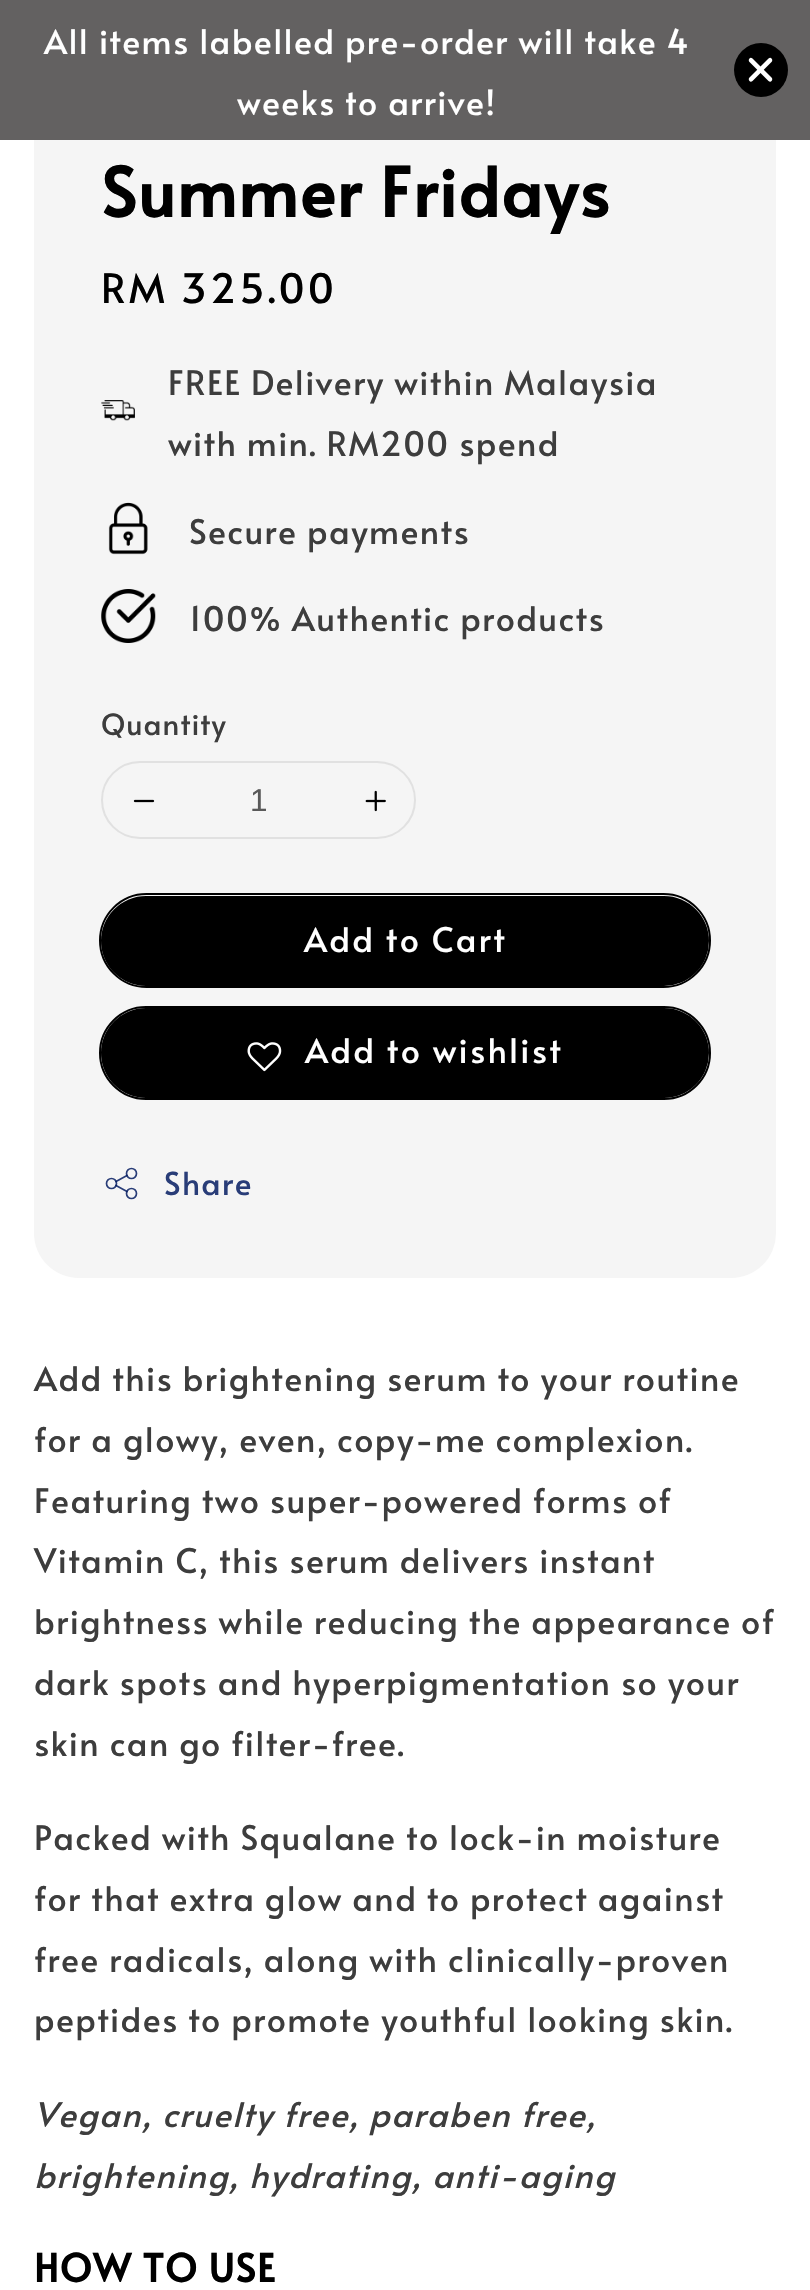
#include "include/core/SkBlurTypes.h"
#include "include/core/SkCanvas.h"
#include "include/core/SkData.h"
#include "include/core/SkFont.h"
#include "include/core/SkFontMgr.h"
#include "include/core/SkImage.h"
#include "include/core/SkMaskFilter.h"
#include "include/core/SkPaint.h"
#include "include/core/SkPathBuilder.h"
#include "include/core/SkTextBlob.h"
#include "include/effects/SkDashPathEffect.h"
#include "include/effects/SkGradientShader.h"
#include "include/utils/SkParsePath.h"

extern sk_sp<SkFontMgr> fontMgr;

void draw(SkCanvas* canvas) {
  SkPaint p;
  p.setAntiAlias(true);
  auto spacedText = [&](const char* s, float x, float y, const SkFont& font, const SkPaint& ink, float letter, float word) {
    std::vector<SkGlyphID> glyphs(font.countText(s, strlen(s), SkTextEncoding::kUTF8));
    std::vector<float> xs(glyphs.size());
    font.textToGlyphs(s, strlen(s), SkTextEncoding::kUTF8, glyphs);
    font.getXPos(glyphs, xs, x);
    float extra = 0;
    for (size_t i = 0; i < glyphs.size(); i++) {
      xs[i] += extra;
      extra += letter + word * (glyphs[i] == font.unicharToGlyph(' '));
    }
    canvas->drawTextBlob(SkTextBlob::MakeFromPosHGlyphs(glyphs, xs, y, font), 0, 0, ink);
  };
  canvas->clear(SK_ColorWHITE);
  p.setColor(SkColorSetRGB(245, 245, 245));
  canvas->drawRoundRect(SkRect::MakeLTRB(34, -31, 776, 1278), 45, 45, p);
  p.setColor(SkColorSetRGB(99, 97, 97));
  canvas->drawRect(SkRect::MakeLTRB(0, 0, 810, 140), p);
  p.setColor(SK_ColorBLACK);
  canvas->drawCircle(761, 70, 27, p);
  p.setColor(SK_ColorWHITE);
  canvas->drawPath(SkPathBuilder().moveTo(771.5f, 58.5f).cubicTo(772.5f, 59.5f, 772.5f, 61, 771.5f, 62).lineTo(752.5f, 81).cubicTo(751.5f, 82, 750, 82, 749.5f, 81).cubicTo(748.5f, 80, 748.5f, 78.5f, 749.5f, 77.5f).lineTo(768.5f, 58.5f).cubicTo(769.5f, 57.5f, 771, 57.5f, 771.5f, 58.5f).close().detach(), p);
  canvas->drawPath(SkPathBuilder().moveTo(749.5f, 58.5f).cubicTo(750, 57.5f, 751.5f, 57.5f, 752.5f, 58.5f).lineTo(771.5f, 77.5f).cubicTo(772.5f, 78.5f, 772.5f, 80, 771.5f, 81).cubicTo(771, 82, 769.5f, 82, 768.5f, 81).lineTo(749.5f, 62).cubicTo(748.5f, 61, 748.5f, 59.5f, 749.5f, 58.5f).close().detach(), p);
  canvas->drawImageRect(SkImages::DeferredFromEncodedData(SkData::MakeFromFileName("images/1.png")), SkRect::MakeLTRB(101, 400, 135, 421), SkSamplingOptions());
  canvas->drawImageRect(SkImages::DeferredFromEncodedData(SkData::MakeFromFileName("images/2.png")), SkRect::MakeLTRB(108, 502, 148, 555), SkSamplingOptions());
  canvas->drawImageRect(SkImages::DeferredFromEncodedData(SkData::MakeFromFileName("images/3.png")), SkRect::MakeLTRB(101, 589, 156, 643), SkSamplingOptions());
  p.setStyle(SkPaint::kStroke_Style);
  p.setStrokeWidth(2);
  p.setColor(SkColorSetRGB(225, 225, 225));
  canvas->drawRoundRect(SkRect::MakeLTRB(102, 762, 415, 838), 38, 38, p);
  canvas->drawImageRect(SkImages::DeferredFromEncodedData(SkData::MakeFromFileName("images/4.png")), SkRect::MakeLTRB(133, 799, 155, 803), SkSamplingOptions());
  canvas->drawImageRect(SkImages::DeferredFromEncodedData(SkData::MakeFromFileName("images/5.png")), SkRect::MakeLTRB(365, 790, 386, 812), SkSamplingOptions());
  p.setColor(SK_ColorBLACK);
  canvas->drawRoundRect(SkRect::MakeLTRB(100, 894, 710, 987), 46.5f, 46.5f, p);
  p.setStyle(SkPaint::kFill_Style);
  canvas->drawRoundRect(SkRect::MakeLTRB(101, 896, 709, 986), 45, 45, p);
  p.setStyle(SkPaint::kStroke_Style);
  canvas->drawRoundRect(SkRect::MakeLTRB(100, 1007, 710, 1099), 46, 46, p);
  p.setStyle(SkPaint::kFill_Style);
  canvas->drawRoundRect(SkRect::MakeLTRB(101, 1008, 709, 1098), 45, 45, p);
  canvas->drawImageRect(SkImages::DeferredFromEncodedData(SkData::MakeFromFileName("images/6.png")), SkRect::MakeLTRB(247, 1042, 282, 1072), SkSamplingOptions());
  p.setStyle(SkPaint::kStroke_Style);
  p.setStrokeWidth(1.7f);
  p.setColor(SkColorSetRGB(41, 61, 120));
  canvas->drawCircle(111.5f, 1183.5f, 5, p);
  canvas->drawCircle(131.5f, 1173.5f, 5, p);
  canvas->drawCircle(131.5f, 1193.5f, 5, p);
  p.setStrokeCap(SkPaint::kRound_Cap);
  p.setStrokeJoin(SkPaint::kRound_Join);
  p.setColor(SkColorSetARGB(217, 5, 28, 98));
  canvas->drawPath(SkPathBuilder().moveTo(116, 1181.5f).lineTo(127, 1175.5f).moveTo(116, 1185.5f).lineTo(127, 1191.5f).detach(), p);
  SkFont font1(fontMgr->matchFamilyStyle("Alata", SkFontStyle::Normal()), 33.75f);
  font1.setSubpixel(true);
  p.setStyle(SkPaint::kFill_Style);
  p.setColor(SK_ColorWHITE);
  spacedText("All items labelled pre-order will take 4", 44, 54, font1, p, 1.35f, 0);
  spacedText("weeks to arrive!", 237, 115, font1, p, 1.35f, 0);
  SkFont font2(fontMgr->matchFamilyStyle("Alata", SkFontStyle::Bold()), 67.5f);
  font2.setSubpixel(true);
  p.setColor(SK_ColorBLACK);
  spacedText("Summer Fridays", 101, 217, font2, p, 1.35f, 0);
  SkFont font3(fontMgr->matchFamilyStyle("Alata", SkFontStyle::Normal()), 40.5f);
  font3.setSubpixel(true);
  spacedText("RM 325.00", 101, 303, font3, p, 3, 0);
  p.setColor(SkColorSetRGB(61, 61, 61));
  spacedText("FREE Delivery within Malaysia", 168, 395, font1, p, 1.35f, 0);
  spacedText("with min. RM200 spend", 168, 456, font1, p, 1.35f, 0);
  spacedText("Secure payments", 189, 544, font1, p, 1.35f, 0);
  spacedText("100% Authentic products", 189, 631, font1, p, 1.35f, 0);
  SkFont font4(fontMgr->matchFamilyStyle("Alata", SkFontStyle::Normal()), 29.25f);
  font4.setSubpixel(true);
  spacedText("Quantity", 101, 735, font4, p, 1, 0);
  SkFont font5(fontMgr->matchFamilyStyle("Liberation Sans", SkFontStyle::Normal()), 31.5f);
  font5.setSubpixel(true);
  p.setColor(SkColorSetRGB(89, 89, 89));
  canvas->drawString("1", 250, 811, font5, p);
  p.setColor(SK_ColorWHITE);
  spacedText("Add to Cart", 304, 952, font1, p, 2.25f, 0);
  spacedText("Add to wishlist", 305, 1063, font1, p, 2.25f, 0);
  SkFont font6(fontMgr->matchFamilyStyle("Alata", SkFontStyle::Normal()), 31.5f);
  font6.setSubpixel(true);
  p.setColor(SkColorSetRGB(41, 61, 120));
  spacedText("Share", 164, 1195, font6, p, 1.35f, 0);
  p.setColor(SkColorSetRGB(61, 61, 61));
  spacedText("Add this brightening serum to your routine", 34, 1391, font1, p, 1.35f, 0);
  spacedText("for a glowy, even, copy-me complexion.", 34, 1452, font1, p, 1.35f, 0);
  spacedText("Featuring two super-powered forms of", 34, 1513, font1, p, 1.35f, 0);
  spacedText("Vitamin C, this serum delivers instant", 34, 1573, font1, p, 1.35f, 0);
  spacedText("brightness while reducing the appearance of", 34, 1634, font1, p, 1.35f, 0);
  spacedText("dark spots and hyperpigmentation so your", 34, 1695, font1, p, 1.35f, 0);
  spacedText("skin can go filter-free.", 34, 1756, font1, p, 1.35f, 0);
  spacedText("Packed with Squalane to lock-in moisture", 34, 1850, font1, p, 1.35f, 0);
  spacedText("for that extra glow and to protect against", 34, 1911, font1, p, 1.35f, 0);
  spacedText("free radicals, along with clinically-proven", 34, 1972, font1, p, 1.35f, 0);
  spacedText("peptides to promote youthful looking skin.", 34, 2032, font1, p, 1.35f, 0);
  SkFont font7(fontMgr->matchFamilyStyle("Alata", SkFontStyle::Italic()), 33.75f);
  font7.setSubpixel(true);
  spacedText("Vegan, cruelty free, paraben free,", 34, 2127, font7, p, 1.35f, 0);
  spacedText("brightening, hydrating, anti-aging", 34, 2188, font7, p, 1.35f, 0);
  SkFont font8(fontMgr->matchFamilyStyle("Alata", SkFontStyle::Bold()), 38.25f);
  font8.setSubpixel(true);
  p.setColor(SK_ColorBLACK);
  spacedText("HOW TO USE", 34, 2282, font8, p, 1.35f, 0);
}
